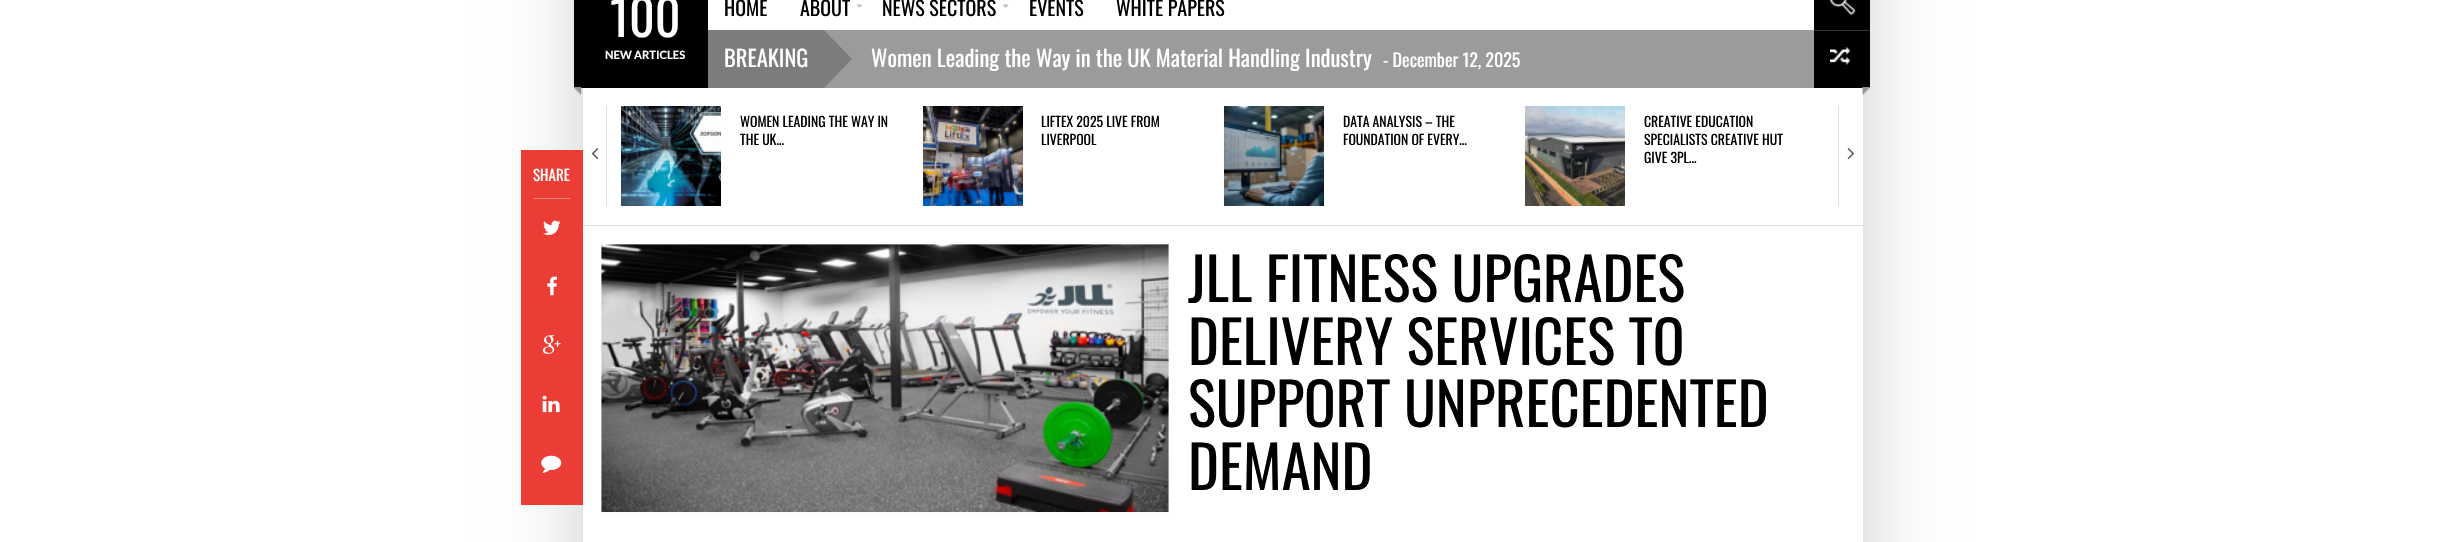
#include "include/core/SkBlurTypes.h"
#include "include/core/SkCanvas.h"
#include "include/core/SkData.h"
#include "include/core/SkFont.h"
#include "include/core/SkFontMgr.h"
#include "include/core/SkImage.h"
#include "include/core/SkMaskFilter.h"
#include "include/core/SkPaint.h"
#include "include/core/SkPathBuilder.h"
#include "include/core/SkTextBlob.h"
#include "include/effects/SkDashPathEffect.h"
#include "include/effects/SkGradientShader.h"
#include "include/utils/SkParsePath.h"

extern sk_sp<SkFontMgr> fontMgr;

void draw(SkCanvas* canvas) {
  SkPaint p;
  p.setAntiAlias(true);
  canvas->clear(SK_ColorWHITE);
  p.setColor(SkColorSetARGB(51, 0, 0, 0));
  p.setMaskFilter(SkMaskFilter::MakeBlur(kNormal_SkBlurStyle, 37.5f));
  canvas->drawRect(SkRect::MakeLTRB(583, -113, 1863, 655), p);
  p.setMaskFilter(nullptr);
  p.setColor(SK_ColorWHITE);
  canvas->drawRect(SkRect::MakeLTRB(583, 0, 1863, 542), p);
  p.setColor(SK_ColorBLACK);
  canvas->drawRect(SkRect::MakeLTRB(574, 0, 708, 88), p);
  canvas->drawImageRect(SkImages::DeferredFromEncodedData(SkData::MakeFromFileName("images/1.png")), SkRect::MakeLTRB(573, 87, 582, 95), SkSamplingOptions());
  canvas->drawImageRect(SkImages::DeferredFromEncodedData(SkData::MakeFromFileName("images/2.png")), SkRect::MakeLTRB(856, 3, 862, 8), SkSamplingOptions());
  canvas->drawImageRect(SkImages::DeferredFromEncodedData(SkData::MakeFromFileName("images/3.png")), SkRect::MakeLTRB(1003, 4, 1009, 8), SkSamplingOptions());
  canvas->drawRect(SkRect::MakeLTRB(1814, 0, 1870, 88), p);
  canvas->drawImageRect(SkImages::DeferredFromEncodedData(SkData::MakeFromFileName("images/4.png")), SkRect::MakeLTRB(1830, 0, 1856, 15), SkSamplingOptions());
  p.setColor(SkColorSetRGB(51, 51, 51));
  canvas->drawRect(SkRect::MakeLTRB(1814, 30, 1870, 31), p);
  canvas->drawImageRect(SkImages::DeferredFromEncodedData(SkData::MakeFromFileName("images/5.png")), SkRect::MakeLTRB(1830, 47, 1851, 65), SkSamplingOptions());
  canvas->drawImageRect(SkImages::DeferredFromEncodedData(SkData::MakeFromFileName("images/6.png")), SkRect::MakeLTRB(1862, 87, 1870, 95), SkSamplingOptions());
  p.setColor(SkColorSetRGB(155, 155, 155));
  canvas->drawRect(SkRect::MakeLTRB(824, 30, 1814, 88), p);
  p.setColor(SkColorSetRGB(124, 124, 124));
  canvas->drawRect(SkRect::MakeLTRB(708, 30, 824, 88), p);
  canvas->drawPath(SkPathBuilder().moveTo(824, 88).lineTo(824, 30).lineTo(852, 59).close().detach(), p);
  p.setColor(SkColorSetRGB(223, 223, 221));
  canvas->drawRect(SkRect::MakeLTRB(583, 225, 1863, 226), p);
  canvas->drawRect(SkRect::MakeLTRB(606, 106, 607, 206), p);
  canvas->drawImageRect(SkImages::DeferredFromEncodedData(SkData::MakeFromFileName("images/7.png")), SkRect::MakeLTRB(591, 148, 599, 160), SkSamplingOptions());
  canvas->drawImageRect(SkImages::DeferredFromEncodedData(SkData::MakeFromFileName("images/8.png")), SkRect::MakeLTRB(621, 106, 721, 206), SkSamplingOptions());
  canvas->drawImageRect(SkImages::DeferredFromEncodedData(SkData::MakeFromFileName("images/9.png")), SkRect::MakeLTRB(923, 106, 1023, 206), SkSamplingOptions());
  canvas->drawImageRect(SkImages::DeferredFromEncodedData(SkData::MakeFromFileName("images/10.png")), SkRect::MakeLTRB(1224, 106, 1324, 206), SkSamplingOptions());
  canvas->drawImageRect(SkImages::DeferredFromEncodedData(SkData::MakeFromFileName("images/11.png")), SkRect::MakeLTRB(1525, 106, 1625, 206), SkSamplingOptions());
  canvas->drawRect(SkRect::MakeLTRB(1838, 106, 1839, 206), p);
  canvas->drawImageRect(SkImages::DeferredFromEncodedData(SkData::MakeFromFileName("images/12.png")), SkRect::MakeLTRB(1847, 148, 1855, 160), SkSamplingOptions());
  p.setColor(SkColorSetRGB(235, 61, 53));
  canvas->drawRect(SkRect::MakeLTRB(521, 150, 583, 505), p);
  p.setColor(SkColorSetRGB(243, 135, 130));
  canvas->drawRect(SkRect::MakeLTRB(534, 198, 570, 199), p);
  canvas->drawImageRect(SkImages::DeferredFromEncodedData(SkData::MakeFromFileName("images/13.png")), SkRect::MakeLTRB(543, 220, 561, 235), SkSamplingOptions());
  canvas->drawImageRect(SkImages::DeferredFromEncodedData(SkData::MakeFromFileName("images/14.png")), SkRect::MakeLTRB(547, 276, 557, 296), SkSamplingOptions());
  canvas->drawImageRect(SkImages::DeferredFromEncodedData(SkData::MakeFromFileName("images/15.png")), SkRect::MakeLTRB(542, 335, 561, 354), SkSamplingOptions());
  canvas->drawImageRect(SkImages::DeferredFromEncodedData(SkData::MakeFromFileName("images/16.png")), SkRect::MakeLTRB(542, 395, 560, 413), SkSamplingOptions());
  canvas->drawImageRect(SkImages::DeferredFromEncodedData(SkData::MakeFromFileName("images/17.png")), SkRect::MakeLTRB(541, 455, 562, 473), SkSamplingOptions());
  canvas->drawImageRect(SkImages::DeferredFromEncodedData(SkData::MakeFromFileName("images/18.png")), SkRect::MakeLTRB(601, 244, 1169, 245), SkSamplingOptions());
  p.setColor(SkColorSetRGB(250, 250, 250));
  canvas->drawRect(SkRect::MakeLTRB(601, 245, 1169, 513), p);
  canvas->drawImageRect(SkImages::DeferredFromEncodedData(SkData::MakeFromFileName("images/19.png")), SkRect::MakeLTRB(601, 244, 1169, 512), SkSamplingOptions());
  SkFont font1(fontMgr->matchFamilyStyle("Oswald", SkFontStyle::Normal()), 50);
  font1.setSubpixel(true);
  p.setColor(SK_ColorWHITE);
  canvas->drawString("100", 610, 37, font1, p);
  SkFont font2(fontMgr->matchFamilyStyle("Lato", SkFontStyle::Bold()), 11.25f);
  font2.setSubpixel(true);
  canvas->drawString("NEW ARTICLES", 605, 59, font2, p);
  SkFont font3(fontMgr->matchFamilyStyle("Oswald", SkFontStyle::Normal()), 20);
  font3.setSubpixel(true);
  p.setColor(SK_ColorBLACK);
  canvas->drawString("HOME", 724, 16, font3, p);
  canvas->drawString("ABOUT", 800, 16, font3, p);
  canvas->drawString("NEWS SECTORS", 882, 16, font3, p);
  canvas->drawString("EVENTS", 1029, 16, font3, p);
  canvas->drawString("WHITE PAPERS", 1116, 16, font3, p);
  SkFont font4(fontMgr->matchFamilyStyle("Oswald", SkFontStyle::Normal()), 22.5f);
  font4.setSubpixel(true);
  p.setColor(SK_ColorWHITE);
  canvas->drawString("BREAKING", 724, 67, font4, p);
  canvas->drawString("Women Leading the Way in the UK Material Handling Industry", 871, 67, font4, p);
  SkFont font5(fontMgr->matchFamilyStyle("Oswald", SkFontStyle::Normal()), 18);
  font5.setSubpixel(true);
  canvas->drawString("- December 12, 2025", 1383, 67, font5, p);
  SkFont font6(fontMgr->matchFamilyStyle("Oswald", SkFontStyle::Normal()), 13.75f);
  font6.setSubpixel(true);
  p.setColor(SK_ColorBLACK);
  canvas->drawString("WOMEN LEADING THE WAY IN", 740, 127, font6, p);
  canvas->drawString("THE UK…", 740, 145, font6, p);
  canvas->drawString("LIFTEX 2025 LIVE FROM", 1041, 127, font6, p);
  canvas->drawString("LIVERPOOL", 1041, 145, font6, p);
  canvas->drawString("DATA ANALYSIS – THE", 1343, 127, font6, p);
  canvas->drawString("FOUNDATION OF EVERY…", 1343, 145, font6, p);
  canvas->drawString("CREATIVE EDUCATION", 1644, 127, font6, p);
  canvas->drawString("SPECIALISTS CREATIVE HUT", 1644, 145, font6, p);
  canvas->drawString("GIVE 3PL…", 1644, 163, font6, p);
  SkFont font7(fontMgr->matchFamilyStyle("Oswald", SkFontStyle::Normal()), 15);
  font7.setSubpixel(true);
  p.setColor(SK_ColorWHITE);
  canvas->drawString("SHARE", 533, 181, font7, p);
  SkFont font8(fontMgr->matchFamilyStyle("Oswald", SkFontStyle::Normal()), 58.75f);
  font8.setSubpixel(true);
  p.setColor(SK_ColorBLACK);
  canvas->drawString("JLL FITNESS UPGRADES", 1188, 302, font8, p);
  canvas->drawString("DELIVERY SERVICES TO", 1188, 365, font8, p);
  canvas->drawString("SUPPORT UNPRECEDENTED", 1188, 427, font8, p);
  canvas->drawString("DEMAND", 1188, 490, font8, p);
}
